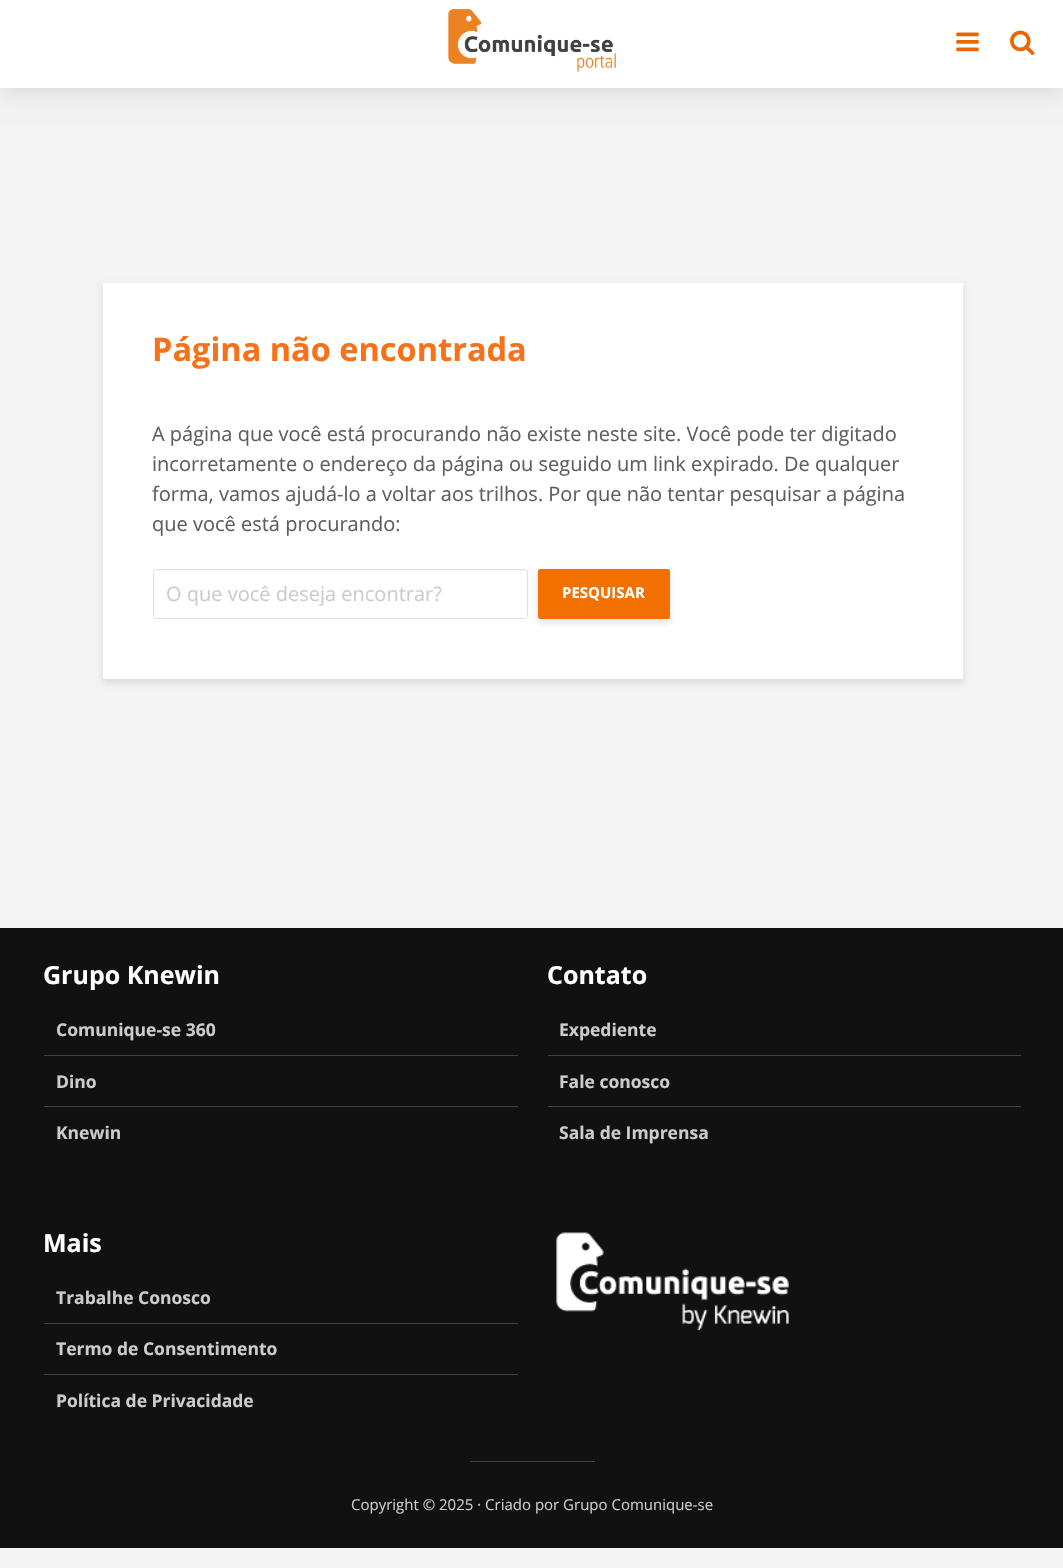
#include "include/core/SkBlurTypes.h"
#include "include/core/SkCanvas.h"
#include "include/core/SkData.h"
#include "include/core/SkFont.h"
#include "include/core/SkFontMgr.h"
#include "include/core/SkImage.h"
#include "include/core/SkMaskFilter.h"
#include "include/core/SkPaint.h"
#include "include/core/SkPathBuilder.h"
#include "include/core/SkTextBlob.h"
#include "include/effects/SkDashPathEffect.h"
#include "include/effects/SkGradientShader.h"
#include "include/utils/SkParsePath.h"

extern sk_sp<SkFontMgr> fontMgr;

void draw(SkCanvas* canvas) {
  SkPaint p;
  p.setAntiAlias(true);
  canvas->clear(SkColorSetRGB(243, 243, 243));
  p.setColor(SkColorSetARGB(38, 0, 0, 0));
  p.setMaskFilter(SkMaskFilter::MakeBlur(kNormal_SkBlurStyle, 12.5f));
  canvas->drawRect(SkRect::MakeLTRB(0, 0, 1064, 88), p);
  p.setMaskFilter(nullptr);
  p.setColor(SK_ColorWHITE);
  canvas->drawRect(SkRect::MakeLTRB(0, 0, 1063, 88), p);
  canvas->drawImageRect(SkImages::DeferredFromEncodedData(SkData::MakeFromFileName("images/1.png")), SkRect::MakeLTRB(448, 9, 616, 72), SkSamplingOptions());
  canvas->drawImageRect(SkImages::DeferredFromEncodedData(SkData::MakeFromFileName("images/2.png")), SkRect::MakeLTRB(956, 32, 979, 52), SkSamplingOptions());
  canvas->drawImageRect(SkImages::DeferredFromEncodedData(SkData::MakeFromFileName("images/3.png")), SkRect::MakeLTRB(1010, 30, 1035, 55), SkSamplingOptions());
  p.setColor(SkColorSetARGB(26, 0, 1, 1));
  p.setMaskFilter(SkMaskFilter::MakeBlur(kNormal_SkBlurStyle, 3));
  canvas->drawRect(SkRect::MakeLTRB(103, 286, 963, 683), p);
  p.setMaskFilter(nullptr);
  p.setColor(SK_ColorWHITE);
  canvas->drawRect(SkRect::MakeLTRB(103, 283, 963, 679), p);
  p.setStyle(SkPaint::kStroke_Style);
  p.setStrokeWidth(1);
  p.setColor(SkColorSetRGB(223, 223, 223));
  canvas->drawRoundRect(SkRect::MakeLTRB(153.5f, 569.5f, 527.5f, 618.5f), 2, 2, p);
  p.setStyle(SkPaint::kFill_Style);
  p.setColor(SkColorSetARGB(26, 0, 0, 0));
  p.setMaskFilter(SkMaskFilter::MakeBlur(kNormal_SkBlurStyle, 3));
  canvas->drawRoundRect(SkRect::MakeLTRB(538, 573, 670, 623), 2.5f, 2.5f, p);
  p.setMaskFilter(nullptr);
  p.setColor(SkColorSetRGB(242, 112, 0));
  canvas->drawRoundRect(SkRect::MakeLTRB(538, 569, 670, 619), 2.5f, 2.5f, p);
  p.setColor(SkColorSetRGB(17, 17, 17));
  canvas->drawRect(SkRect::MakeLTRB(0, 928, 1063, 1548), p);
  p.setColor(SkColorSetRGB(65, 65, 65));
  canvas->drawRect(SkRect::MakeLTRB(44, 1055, 518, 1056), p);
  canvas->drawRect(SkRect::MakeLTRB(44, 1106, 518, 1107), p);
  canvas->drawRect(SkRect::MakeLTRB(548, 1055, 1021, 1056), p);
  canvas->drawRect(SkRect::MakeLTRB(548, 1106, 1021, 1107), p);
  canvas->drawRect(SkRect::MakeLTRB(44, 1323, 518, 1324), p);
  canvas->drawRect(SkRect::MakeLTRB(44, 1374, 518, 1375), p);
  canvas->drawImageRect(SkImages::DeferredFromEncodedData(SkData::MakeFromFileName("images/4.png")), SkRect::MakeLTRB(556, 1232, 789, 1331), SkSamplingOptions());
  canvas->drawRect(SkRect::MakeLTRB(470, 1461, 595, 1462), p);
  SkFont font1(fontMgr->matchFamilyStyle("Open Sans", SkFontStyle::Bold()), 32.5f);
  font1.setSubpixel(true);
  p.setColor(SkColorSetRGB(247, 113, 24));
  canvas->drawString("Página não encontrada", 152, 361, font1, p);
  SkFont font2(fontMgr->matchFamilyStyle("Open Sans", SkFontStyle::Normal()), 20);
  font2.setSubpixel(true);
  p.setColor(SkColorSetRGB(94, 94, 94));
  canvas->drawString("A página que você está procurando não existe neste site. Você pode ter digitado", 152, 441, font2, p);
  canvas->drawString("incorretamente o endereço da página ou seguido um link expirado. De qualquer", 152, 471, font2, p);
  canvas->drawString("forma, vamos ajudá-lo a voltar aos trilhos. Por que não tentar pesquisar a página", 152, 501, font2, p);
  canvas->drawString("que você está procurando:", 152, 531, font2, p);
  p.setColor(SkColorSetRGB(204, 204, 204));
  canvas->drawString("O que você deseja encontrar?", 166, 601, font2, p);
  SkFont font3(fontMgr->matchFamilyStyle("Open Sans", SkFontStyle::Bold()), 15);
  font3.setSubpixel(true);
  p.setColor(SK_ColorWHITE);
  canvas->drawString("PESQUISAR", 562, 598, font3, p);
  SkFont font4(fontMgr->matchFamilyStyle("Open Sans", SkFontStyle::Bold()), 25);
  font4.setSubpixel(true);
  canvas->drawString("Grupo Knewin", 43, 984, font4, p);
  SkFont font5(fontMgr->matchFamilyStyle("Open Sans", SkFontStyle::Bold()), 17.5f);
  font5.setSubpixel(true);
  p.setColor(SkColorSetRGB(204, 204, 204));
  canvas->drawString("Comunique-se 360", 56, 1036, font5, p);
  canvas->drawString("Dino", 56, 1088, font5, p);
  canvas->drawString("Knewin", 56, 1139, font5, p);
  p.setColor(SK_ColorWHITE);
  canvas->drawString("Contato", 547, 984, font4, p);
  p.setColor(SkColorSetRGB(204, 204, 204));
  canvas->drawString("Expediente", 559, 1036, font5, p);
  canvas->drawString("Fale conosco", 559, 1088, font5, p);
  canvas->drawString("Sala de Imprensa", 559, 1139, font5, p);
  p.setColor(SK_ColorWHITE);
  canvas->drawString("Mais", 43, 1252, font4, p);
  p.setColor(SkColorSetRGB(204, 204, 204));
  canvas->drawString("Trabalhe Conosco", 56, 1304, font5, p);
  canvas->drawString("Termo de Consentimento", 56, 1355, font5, p);
  canvas->drawString("Política de Privacidade", 56, 1407, font5, p);
  SkFont font6(fontMgr->matchFamilyStyle("Open Sans", SkFontStyle::Normal()), 15);
  font6.setSubpixel(true);
  canvas->drawString("Copyright © 2025 · Criado por Grupo Comunique-se", 351, 1510, font6, p);
}
